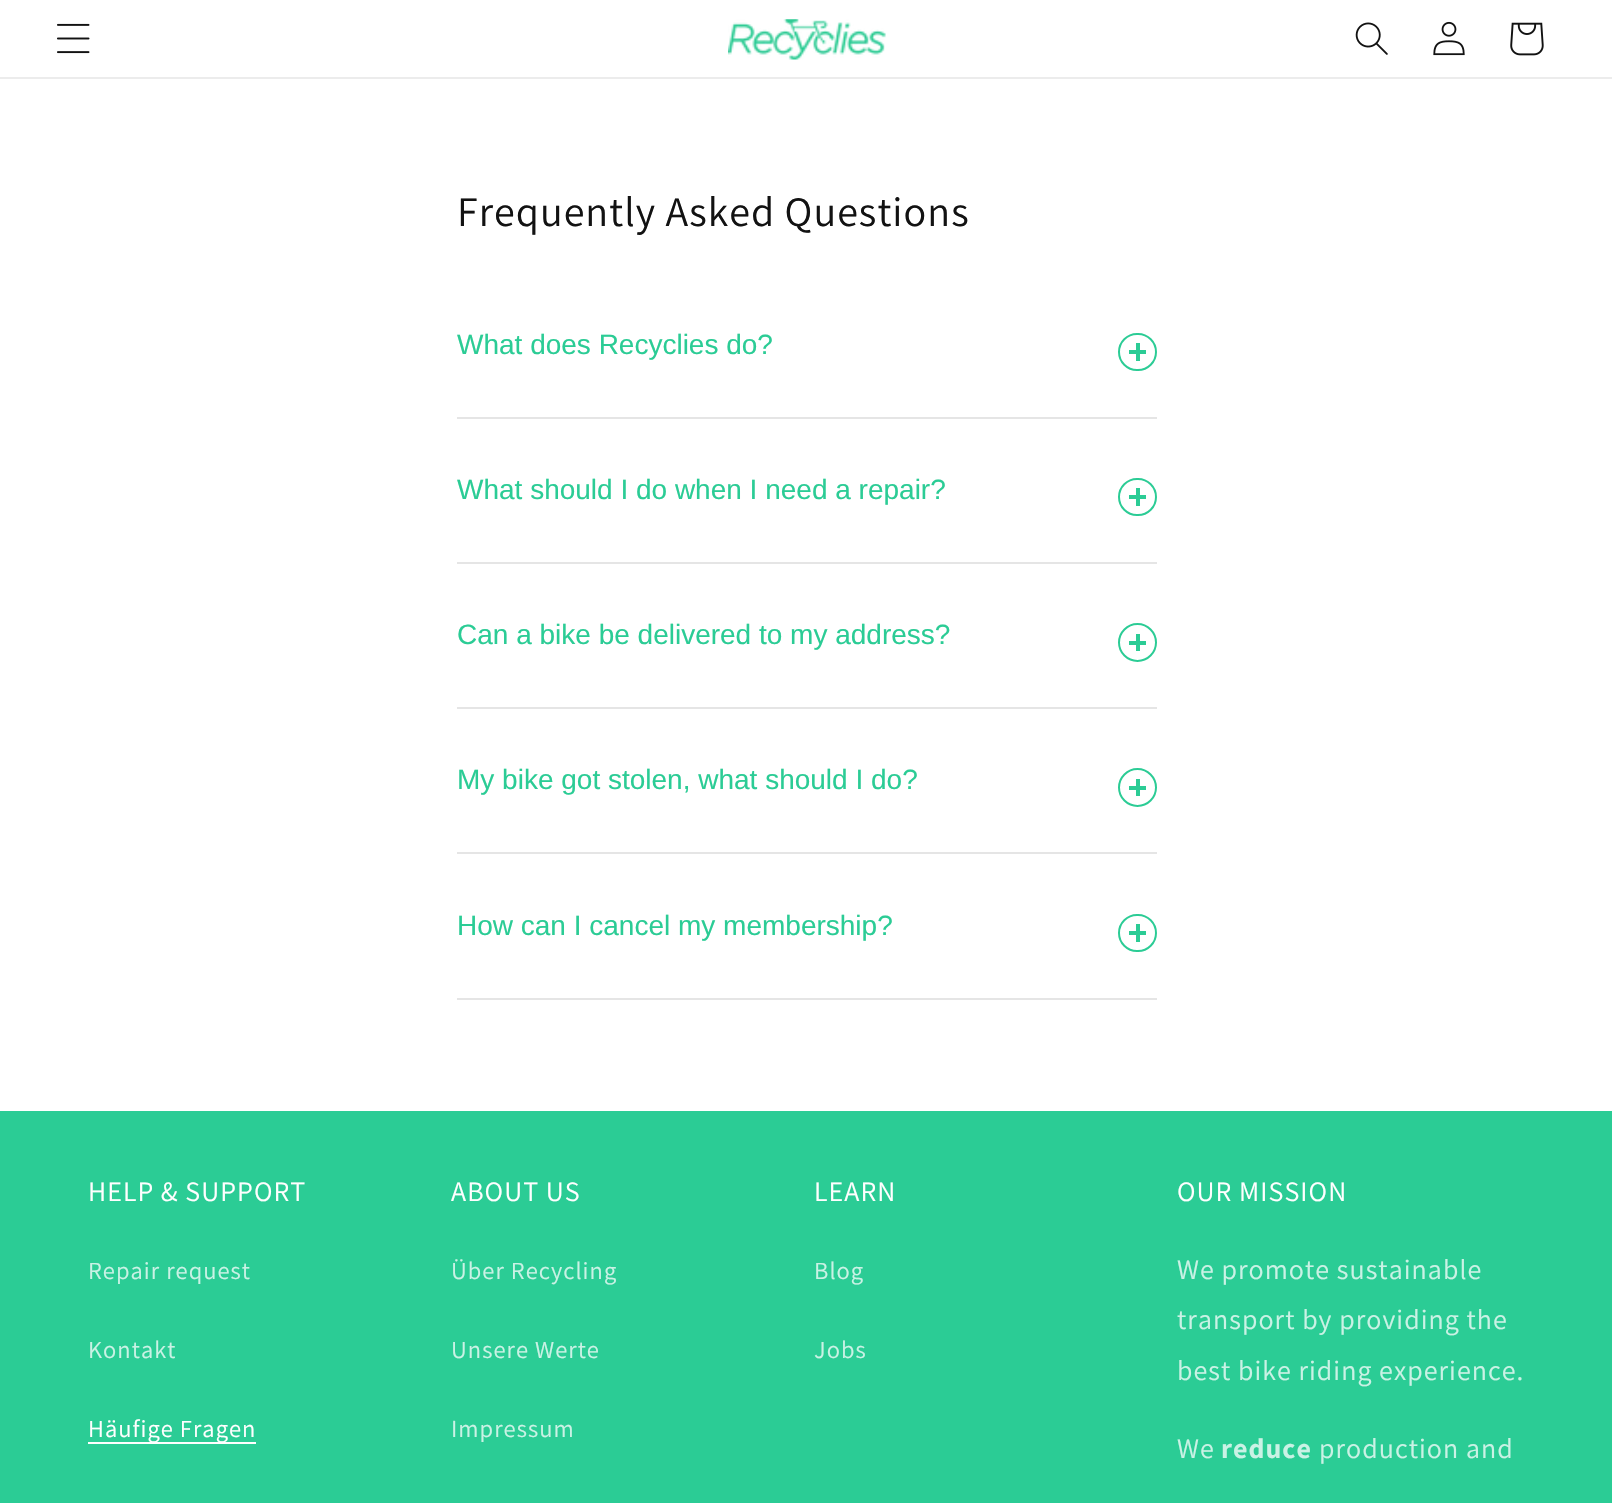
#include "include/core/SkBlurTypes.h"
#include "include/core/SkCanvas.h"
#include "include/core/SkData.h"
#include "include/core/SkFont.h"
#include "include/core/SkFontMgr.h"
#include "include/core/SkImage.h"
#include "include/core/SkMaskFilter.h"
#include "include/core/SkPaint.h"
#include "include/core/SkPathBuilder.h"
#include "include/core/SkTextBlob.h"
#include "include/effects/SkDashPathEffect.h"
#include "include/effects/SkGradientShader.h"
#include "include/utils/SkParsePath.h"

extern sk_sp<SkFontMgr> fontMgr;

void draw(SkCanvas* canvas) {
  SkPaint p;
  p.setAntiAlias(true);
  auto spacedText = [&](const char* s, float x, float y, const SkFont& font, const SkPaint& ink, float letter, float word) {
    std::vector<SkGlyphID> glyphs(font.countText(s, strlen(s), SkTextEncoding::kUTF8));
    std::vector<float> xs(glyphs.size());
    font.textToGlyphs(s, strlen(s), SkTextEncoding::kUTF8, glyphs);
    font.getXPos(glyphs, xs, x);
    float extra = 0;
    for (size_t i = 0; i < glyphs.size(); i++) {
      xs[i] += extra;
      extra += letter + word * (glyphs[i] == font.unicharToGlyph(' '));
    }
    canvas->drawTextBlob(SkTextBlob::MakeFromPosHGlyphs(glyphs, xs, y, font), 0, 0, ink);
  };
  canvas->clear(SK_ColorWHITE);
  p.setColor(SkColorSetRGB(236, 236, 236));
  canvas->drawRect(SkRect::MakeLTRB(0, 77, 1612, 79), p);
  canvas->drawImageRect(SkImages::DeferredFromEncodedData(SkData::MakeFromFileName("images/1.png")), SkRect::MakeLTRB(57, 23, 90, 54), SkSamplingOptions());
  canvas->drawImageRect(SkImages::DeferredFromEncodedData(SkData::MakeFromFileName("images/2.png")), SkRect::MakeLTRB(728, 19, 886, 60), SkSamplingOptions());
  canvas->drawImageRect(SkImages::DeferredFromEncodedData(SkData::MakeFromFileName("images/3.png")), SkRect::MakeLTRB(1355, 22, 1388, 55), SkSamplingOptions());
  canvas->drawImageRect(SkImages::DeferredFromEncodedData(SkData::MakeFromFileName("images/4.png")), SkRect::MakeLTRB(1433, 21, 1465, 56), SkSamplingOptions());
  canvas->drawImageRect(SkImages::DeferredFromEncodedData(SkData::MakeFromFileName("images/5.png")), SkRect::MakeLTRB(1510, 22, 1544, 56), SkSamplingOptions());
  p.setColor(SkColorSetRGB(229, 229, 229));
  canvas->drawRect(SkRect::MakeLTRB(457, 417, 1157, 419), p);
  p.setStyle(SkPaint::kStroke_Style);
  p.setStrokeWidth(2);
  p.setColor(SkColorSetRGB(43, 204, 149));
  canvas->drawRoundRect(SkRect::MakeLTRB(1119, 334, 1156, 370), 18, 18, p);
  p.setStyle(SkPaint::kFill_Style);
  canvas->drawRect(SkRect::MakeLTRB(1129, 350, 1146, 354), p);
  canvas->drawRect(SkRect::MakeLTRB(1136, 343, 1140, 361), p);
  p.setColor(SkColorSetRGB(229, 229, 229));
  canvas->drawRect(SkRect::MakeLTRB(457, 562, 1157, 564), p);
  p.setStyle(SkPaint::kStroke_Style);
  p.setColor(SkColorSetRGB(43, 204, 149));
  canvas->drawRoundRect(SkRect::MakeLTRB(1119, 479, 1156, 515), 18, 18, p);
  p.setStyle(SkPaint::kFill_Style);
  canvas->drawRect(SkRect::MakeLTRB(1129, 495, 1146, 499), p);
  canvas->drawRect(SkRect::MakeLTRB(1136, 488, 1140, 506), p);
  p.setColor(SkColorSetRGB(229, 229, 229));
  canvas->drawRect(SkRect::MakeLTRB(457, 707, 1157, 709), p);
  p.setStyle(SkPaint::kStroke_Style);
  p.setColor(SkColorSetRGB(43, 204, 149));
  canvas->drawCircle(1137.5f, 642.5f, 18.5f, p);
  p.setStyle(SkPaint::kFill_Style);
  canvas->drawRect(SkRect::MakeLTRB(1129, 641, 1146, 645), p);
  canvas->drawRect(SkRect::MakeLTRB(1136, 634, 1140, 651), p);
  p.setColor(SkColorSetRGB(229, 229, 229));
  canvas->drawRect(SkRect::MakeLTRB(457, 852, 1157, 854), p);
  p.setStyle(SkPaint::kStroke_Style);
  p.setColor(SkColorSetRGB(43, 204, 149));
  canvas->drawCircle(1137.5f, 787.5f, 18.5f, p);
  p.setStyle(SkPaint::kFill_Style);
  canvas->drawRect(SkRect::MakeLTRB(1129, 786, 1146, 790), p);
  canvas->drawRect(SkRect::MakeLTRB(1136, 779, 1140, 796), p);
  p.setColor(SkColorSetRGB(229, 229, 229));
  canvas->drawRect(SkRect::MakeLTRB(457, 998, 1157, 1000), p);
  p.setStyle(SkPaint::kStroke_Style);
  p.setColor(SkColorSetRGB(43, 204, 149));
  canvas->drawRoundRect(SkRect::MakeLTRB(1119, 915, 1156, 951), 18, 18, p);
  p.setStyle(SkPaint::kFill_Style);
  canvas->drawRect(SkRect::MakeLTRB(1129, 931, 1146, 935), p);
  canvas->drawRect(SkRect::MakeLTRB(1136, 924, 1140, 942), p);
  canvas->drawRect(SkRect::MakeLTRB(0, 1111, 1612, 1503), p);
  p.setColor(SK_ColorWHITE);
  canvas->drawRect(SkRect::MakeLTRB(88, 1442, 256, 1444), p);
  SkFont font1(fontMgr->matchFamilyStyle("Assistant", SkFontStyle::Normal()), 42);
  font1.setSubpixel(true);
  p.setColor(SkColorSetRGB(18, 18, 18));
  spacedText("Frequently Asked Questions", 457, 226, font1, p, 1.05f, 0);
  SkFont font2(fontMgr->matchFamilyStyle("Liberation Sans", SkFontStyle::Normal()), 28);
  font2.setSubpixel(true);
  p.setColor(SkColorSetRGB(43, 204, 149));
  canvas->drawString("What does Recyclies do?", 457, 354, font2, p);
  canvas->drawString("What should I do when I need a repair?", 457, 499, font2, p);
  canvas->drawString("Can a bike be delivered to my address?", 457, 644, font2, p);
  canvas->drawString("My bike got stolen, what should I do?", 457, 789, font2, p);
  canvas->drawString("How can I cancel my membership?", 457, 935, font2, p);
  SkFont font3(fontMgr->matchFamilyStyle("Assistant", SkFontStyle::Normal()), 28);
  font3.setSubpixel(true);
  p.setColor(SK_ColorWHITE);
  spacedText("HELP & SUPPORT", 88, 1201, font3, p, 1.05f, 0);
  SkFont font4(fontMgr->matchFamilyStyle("Assistant", SkFontStyle::Normal()), 24.5f);
  font4.setSubpixel(true);
  p.setColor(SkColorSetRGB(202, 242, 229));
  spacedText("Repair request", 88, 1279, font4, p, 1.05f, 0);
  spacedText("Kontakt", 88, 1358, font4, p, 1.05f, 0);
  p.setColor(SK_ColorWHITE);
  spacedText("Häufige Fragen", 88, 1437, font4, p, 1.05f, 0);
  spacedText("ABOUT US", 451, 1201, font3, p, 1.05f, 0);
  p.setColor(SkColorSetRGB(202, 242, 229));
  spacedText("Über Recycling", 451, 1279, font4, p, 1.05f, 0);
  spacedText("Unsere Werte", 451, 1358, font4, p, 1.05f, 0);
  spacedText("Impressum", 451, 1437, font4, p, 1.05f, 0);
  p.setColor(SK_ColorWHITE);
  spacedText("LEARN", 814, 1201, font3, p, 1.05f, 0);
  p.setColor(SkColorSetRGB(202, 242, 229));
  spacedText("Blog", 814, 1279, font4, p, 1.05f, 0);
  spacedText("Jobs", 814, 1358, font4, p, 1.05f, 0);
  p.setColor(SK_ColorWHITE);
  spacedText("OUR MISSION", 1177, 1201, font3, p, 1.05f, 0);
  p.setColor(SkColorSetRGB(202, 242, 229));
  spacedText("We promote sustainable", 1177, 1279, font3, p, 1.05f, 0);
  spacedText("transport by providing the", 1177, 1329, font3, p, 1.05f, 0);
  spacedText("best bike riding experience.", 1177, 1380, font3, p, 1.05f, 0);
  spacedText("We", 1177, 1458, font3, p, 1.05f, 0);
  SkFont font5(fontMgr->matchFamilyStyle("Assistant", SkFontStyle::Bold()), 28);
  font5.setSubpixel(true);
  spacedText("reduce", 1221, 1458, font5, p, 1.05f, 0);
  spacedText("production and", 1319, 1458, font3, p, 1.05f, 0);
}
